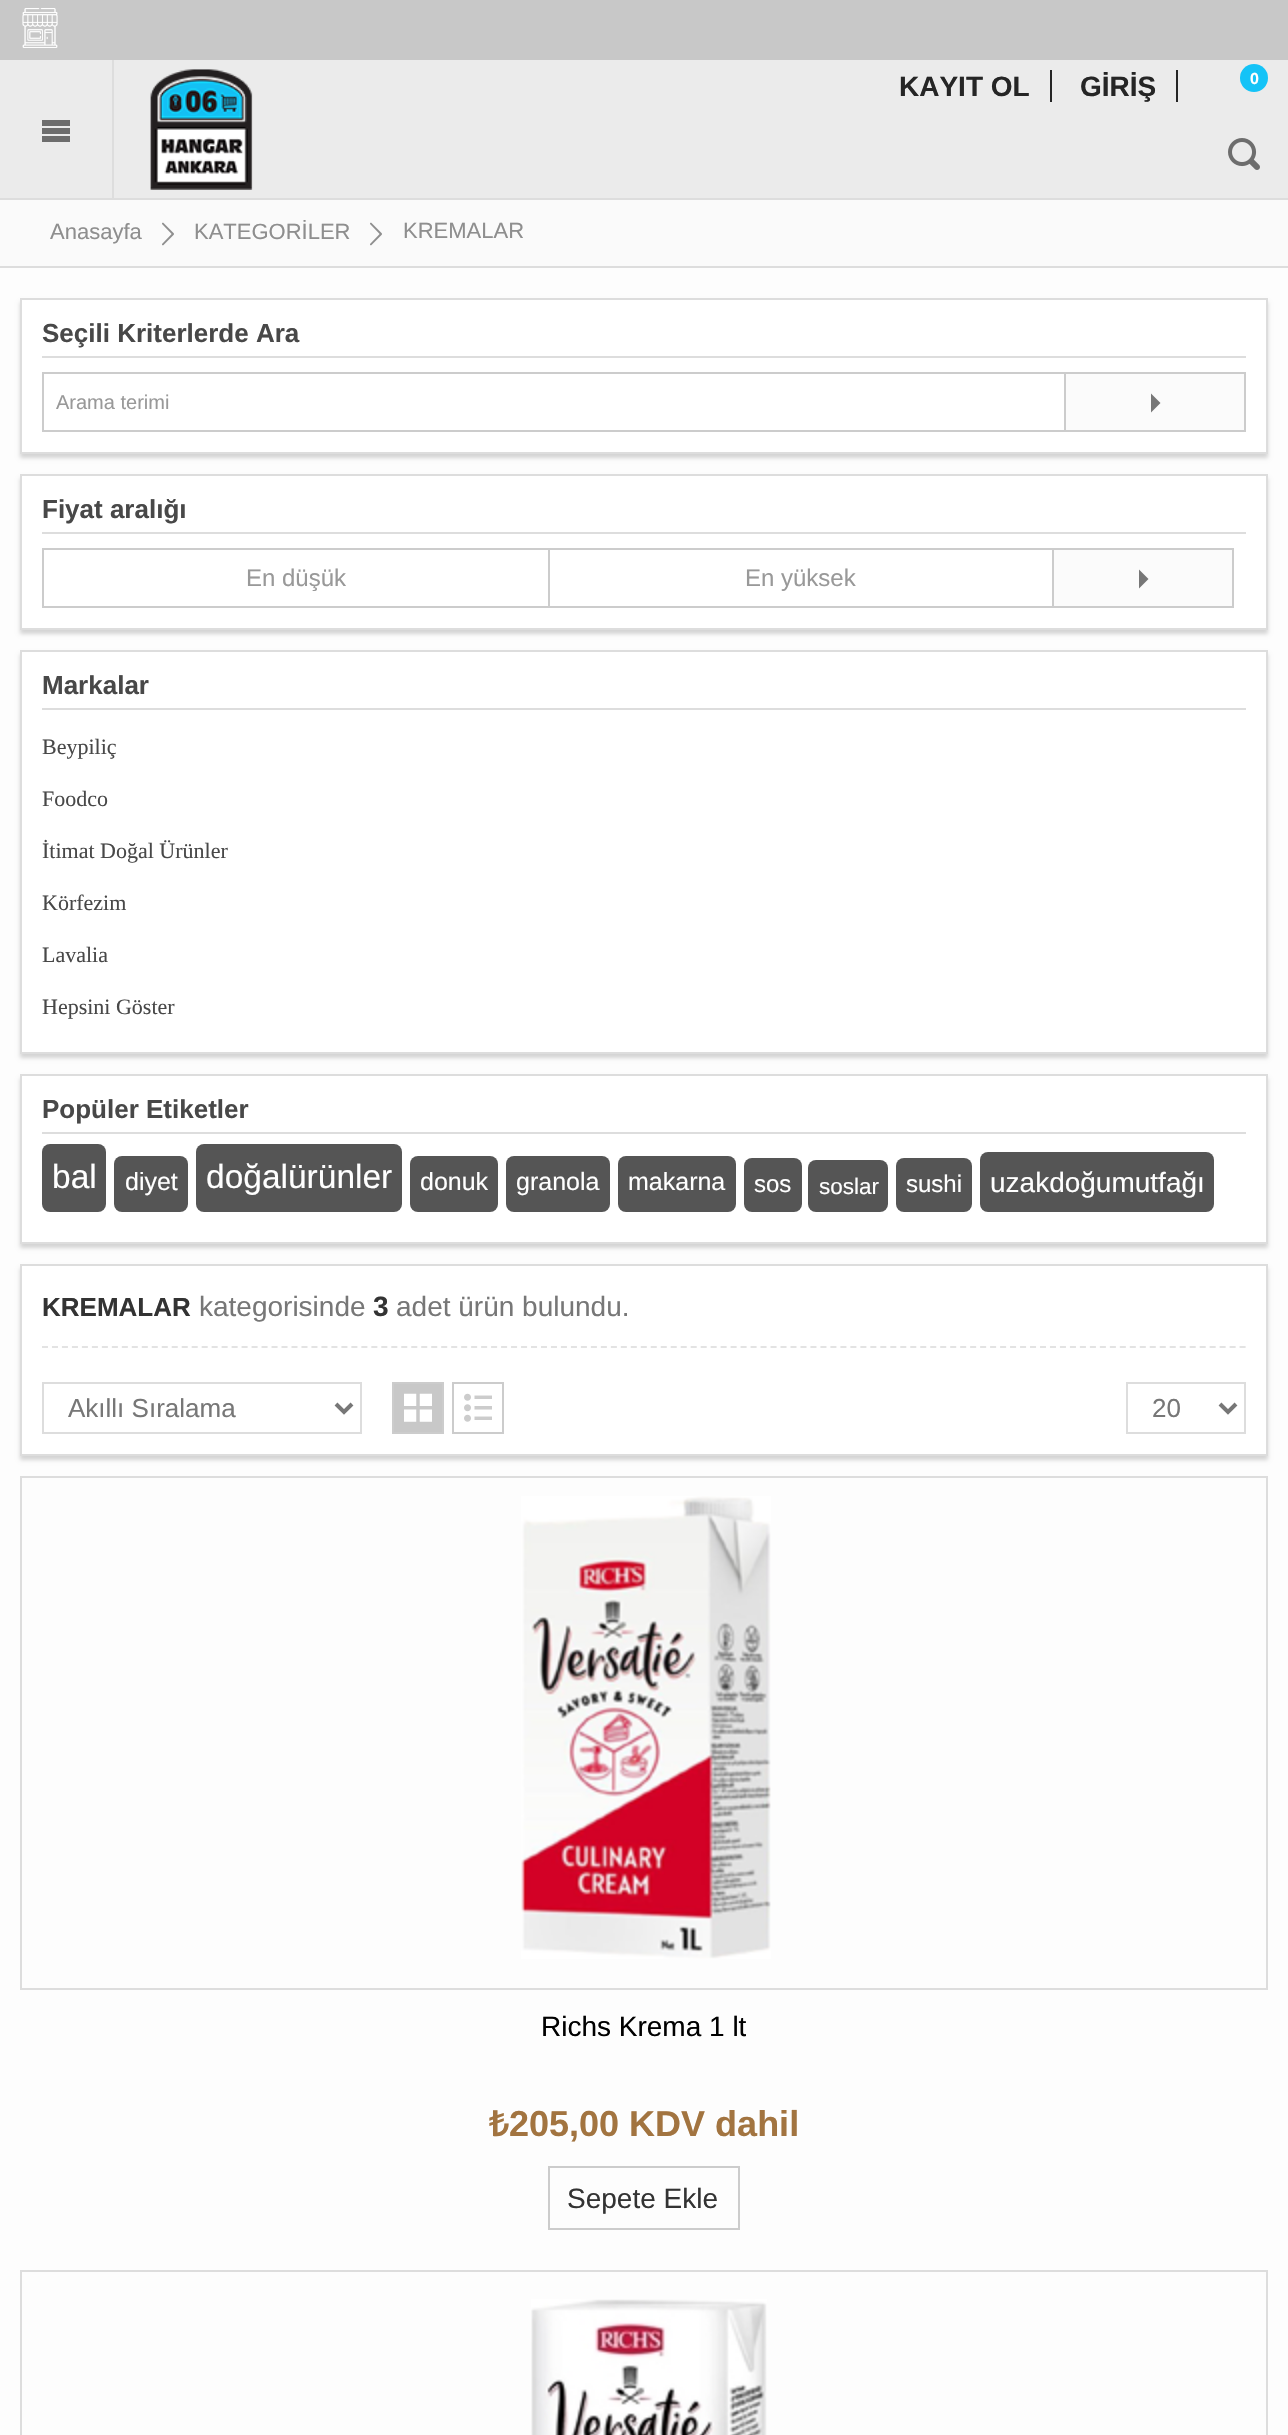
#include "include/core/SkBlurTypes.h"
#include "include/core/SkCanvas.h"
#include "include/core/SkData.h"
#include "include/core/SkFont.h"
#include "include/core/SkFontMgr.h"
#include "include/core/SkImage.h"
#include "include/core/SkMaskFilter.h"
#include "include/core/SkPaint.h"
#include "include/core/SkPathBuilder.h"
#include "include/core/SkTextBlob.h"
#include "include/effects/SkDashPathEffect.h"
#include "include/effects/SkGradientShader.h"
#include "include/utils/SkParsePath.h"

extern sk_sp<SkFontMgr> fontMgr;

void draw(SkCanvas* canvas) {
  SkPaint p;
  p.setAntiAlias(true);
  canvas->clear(SkColorSetRGB(253, 253, 253));
  p.setColor(SkColorSetRGB(235, 235, 235));
  canvas->drawRect(SkRect::MakeLTRB(0, 60, 1288, 198), p);
  p.setColor(SkColorSetRGB(221, 221, 221));
  canvas->drawRect(SkRect::MakeLTRB(0, 198, 1288, 200), p);
  p.setColor(SkColorSetRGB(200, 200, 200));
  canvas->drawRect(SkRect::MakeLTRB(0, 0, 1288, 60), p);
  canvas->drawImageRect(SkImages::DeferredFromEncodedData(SkData::MakeFromFileName("images/1.png")), SkRect::MakeLTRB(22, 8, 58, 48), SkSamplingOptions());
  p.setColor(SkColorSetRGB(221, 221, 221));
  canvas->drawRect(SkRect::MakeLTRB(112, 60, 114, 198), p);
  canvas->drawImageRect(SkImages::DeferredFromEncodedData(SkData::MakeFromFileName("images/2.png")), SkRect::MakeLTRB(42, 120, 70, 142), SkSamplingOptions());
  canvas->drawImageRect(SkImages::DeferredFromEncodedData(SkData::MakeFromFileName("images/3.png")), SkRect::MakeLTRB(150, 69, 253, 190), SkSamplingOptions());
  p.setColor(SkColorSetRGB(37, 37, 37));
  canvas->drawRect(SkRect::MakeLTRB(1050, 70, 1052, 102), p);
  canvas->drawRect(SkRect::MakeLTRB(1176, 70, 1178, 102), p);
  p.setColor(SkColorSetRGB(20, 195, 247));
  canvas->drawCircle(1254, 78, 14, p);
  canvas->drawImageRect(SkImages::DeferredFromEncodedData(SkData::MakeFromFileName("images/4.png")), SkRect::MakeLTRB(1228, 138, 1260, 170), SkSamplingOptions());
  p.setColor(SkColorSetRGB(250, 250, 250));
  canvas->drawRect(SkRect::MakeLTRB(0, 200, 1288, 266), p);
  p.setColor(SkColorSetRGB(221, 221, 221));
  canvas->drawRect(SkRect::MakeLTRB(0, 266, 1288, 268), p);
  canvas->drawImageRect(SkImages::DeferredFromEncodedData(SkData::MakeFromFileName("images/5.png")), SkRect::MakeLTRB(162, 222, 174, 246), SkSamplingOptions());
  canvas->drawImageRect(SkImages::DeferredFromEncodedData(SkData::MakeFromFileName("images/5.png")), SkRect::MakeLTRB(370, 222, 382, 246), SkSamplingOptions());
  p.setColor(SkColorSetRGB(212, 212, 212));
  p.setMaskFilter(SkMaskFilter::MakeBlur(kNormal_SkBlurStyle, 2));
  canvas->drawRect(SkRect::MakeLTRB(20, 302, 1268, 458), p);
  p.setMaskFilter(nullptr);
  p.setColor(SK_ColorWHITE);
  canvas->drawRect(SkRect::MakeLTRB(21, 299, 1267, 453), p);
  p.setStyle(SkPaint::kStroke_Style);
  p.setStrokeWidth(2);
  p.setColor(SkColorSetRGB(221, 221, 221));
  canvas->drawRect(SkRect::MakeLTRB(21, 299, 1267, 453), p);
  p.setStyle(SkPaint::kFill_Style);
  canvas->drawRect(SkRect::MakeLTRB(42, 356, 1246, 358), p);
  p.setStyle(SkPaint::kStroke_Style);
  p.setColor(SkColorSetRGB(204, 204, 204));
  canvas->drawRect(SkRect::MakeLTRB(43, 373, 1065, 431), p);
  p.setStyle(SkPaint::kFill_Style);
  p.setColor(SkColorSetRGB(251, 251, 251));
  canvas->drawRect(SkRect::MakeLTRB(1066, 374, 1244, 430), p);
  p.setColor(SkColorSetRGB(204, 204, 204));
  canvas->drawRect(SkRect::MakeLTRB(1066, 372, 1246, 374), p);
  canvas->drawRect(SkRect::MakeLTRB(1244, 372, 1246, 432), p);
  canvas->drawRect(SkRect::MakeLTRB(1066, 430, 1246, 432), p);
  p.setColor(SkColorSetRGB(119, 119, 119));
  canvas->drawPath(SkPathBuilder().moveTo(1151, 412.5f).lineTo(1160.5f, 403).lineTo(1151, 393.5f).close().detach(), p);
  p.setColor(SkColorSetRGB(212, 212, 212));
  p.setMaskFilter(SkMaskFilter::MakeBlur(kNormal_SkBlurStyle, 2));
  canvas->drawRect(SkRect::MakeLTRB(20, 478, 1268, 634), p);
  p.setMaskFilter(nullptr);
  p.setColor(SK_ColorWHITE);
  canvas->drawRect(SkRect::MakeLTRB(21, 475, 1267, 629), p);
  p.setStyle(SkPaint::kStroke_Style);
  p.setColor(SkColorSetRGB(221, 221, 221));
  canvas->drawRect(SkRect::MakeLTRB(21, 475, 1267, 629), p);
  p.setStyle(SkPaint::kFill_Style);
  canvas->drawRect(SkRect::MakeLTRB(42, 532, 1246, 534), p);
  p.setColor(SkColorSetRGB(204, 204, 204));
  canvas->drawRect(SkRect::MakeLTRB(42, 548, 548, 550), p);
  canvas->drawRect(SkRect::MakeLTRB(42, 606, 548, 608), p);
  canvas->drawRect(SkRect::MakeLTRB(42, 548, 44, 608), p);
  p.setStyle(SkPaint::kStroke_Style);
  canvas->drawRect(SkRect::MakeLTRB(549, 549, 1053, 607), p);
  p.setStyle(SkPaint::kFill_Style);
  p.setColor(SkColorSetRGB(251, 251, 251));
  canvas->drawRect(SkRect::MakeLTRB(1054, 550, 1232, 606), p);
  p.setColor(SkColorSetRGB(204, 204, 204));
  canvas->drawRect(SkRect::MakeLTRB(1054, 548, 1234, 550), p);
  canvas->drawRect(SkRect::MakeLTRB(1232, 548, 1234, 608), p);
  canvas->drawRect(SkRect::MakeLTRB(1054, 606, 1234, 608), p);
  p.setColor(SkColorSetRGB(119, 119, 119));
  canvas->drawPath(SkPathBuilder().moveTo(1139, 588.5f).lineTo(1148.5f, 579).lineTo(1139, 569.5f).close().detach(), p);
  p.setColor(SkColorSetRGB(212, 212, 212));
  p.setMaskFilter(SkMaskFilter::MakeBlur(kNormal_SkBlurStyle, 2));
  canvas->drawRect(SkRect::MakeLTRB(20, 654, 1268, 1058), p);
  p.setMaskFilter(nullptr);
  p.setColor(SK_ColorWHITE);
  canvas->drawRect(SkRect::MakeLTRB(21, 651, 1267, 1053), p);
  p.setStyle(SkPaint::kStroke_Style);
  p.setColor(SkColorSetRGB(221, 221, 221));
  canvas->drawRect(SkRect::MakeLTRB(21, 651, 1267, 1053), p);
  p.setStyle(SkPaint::kFill_Style);
  canvas->drawRect(SkRect::MakeLTRB(42, 708, 1246, 710), p);
  p.setColor(SkColorSetRGB(212, 212, 212));
  p.setMaskFilter(SkMaskFilter::MakeBlur(kNormal_SkBlurStyle, 2));
  canvas->drawRect(SkRect::MakeLTRB(20, 1078, 1268, 1248), p);
  p.setMaskFilter(nullptr);
  p.setColor(SK_ColorWHITE);
  canvas->drawRect(SkRect::MakeLTRB(21, 1075, 1267, 1243), p);
  p.setStyle(SkPaint::kStroke_Style);
  p.setColor(SkColorSetRGB(221, 221, 221));
  canvas->drawRect(SkRect::MakeLTRB(21, 1075, 1267, 1243), p);
  p.setStyle(SkPaint::kFill_Style);
  canvas->drawRect(SkRect::MakeLTRB(42, 1132, 1246, 1134), p);
  p.setColor(SkColorSetRGB(85, 85, 85));
  canvas->drawRoundRect(SkRect::MakeLTRB(42, 1144, 106, 1212), 8, 8, p);
  canvas->drawRoundRect(SkRect::MakeLTRB(114, 1156, 188, 1212), 8, 8, p);
  canvas->drawRoundRect(SkRect::MakeLTRB(196, 1144, 402, 1212), 8, 8, p);
  canvas->drawRoundRect(SkRect::MakeLTRB(410, 1156, 498, 1212), 8, 8, p);
  canvas->drawRoundRect(SkRect::MakeLTRB(506, 1156, 610, 1212), 8, 8, p);
  canvas->drawRoundRect(SkRect::MakeLTRB(618, 1156, 736, 1212), 8, 8, p);
  canvas->drawRoundRect(SkRect::MakeLTRB(744, 1158, 802, 1212), 8, 8, p);
  canvas->drawRoundRect(SkRect::MakeLTRB(808, 1160, 888, 1212), 8, 8, p);
  canvas->drawRoundRect(SkRect::MakeLTRB(896, 1158, 972, 1212), 8, 8, p);
  canvas->drawRoundRect(SkRect::MakeLTRB(980, 1152, 1214, 1212), 8, 8, p);
  p.setColor(SkColorSetRGB(212, 212, 212));
  p.setMaskFilter(SkMaskFilter::MakeBlur(kNormal_SkBlurStyle, 2));
  canvas->drawRect(SkRect::MakeLTRB(20, 1268, 1268, 1460), p);
  p.setMaskFilter(nullptr);
  p.setColor(SK_ColorWHITE);
  canvas->drawRect(SkRect::MakeLTRB(21, 1265, 1267, 1455), p);
  p.setStyle(SkPaint::kStroke_Style);
  p.setColor(SkColorSetRGB(221, 221, 221));
  canvas->drawRect(SkRect::MakeLTRB(21, 1265, 1267, 1455), p);
  p.setColor(SkColorSetRGB(227, 227, 227));
  p.setPathEffect(SkDashPathEffect::Make({{6, 3.98f}}, 0));
  canvas->drawPath(SkPathBuilder().moveTo(42, 1347).lineTo(1246, 1347).detach(), p);
  p.setPathEffect(nullptr);
  p.setColor(SkColorSetRGB(221, 221, 221));
  canvas->drawRect(SkRect::MakeLTRB(43, 1383, 361, 1433), p);
  p.setStrokeWidth(4);
  p.setColor(SkColorSetRGB(119, 119, 119));
  canvas->drawPath(SkPathBuilder().moveTo(336, 1404).lineTo(344, 1412).lineTo(352, 1404).detach(), p);
  p.setStyle(SkPaint::kFill_Style);
  p.setColor(SkColorSetRGB(200, 200, 200));
  canvas->drawRect(SkRect::MakeLTRB(393, 1383, 443, 1433), p);
  p.setStyle(SkPaint::kStroke_Style);
  p.setStrokeWidth(2);
  p.setColor(SkColorSetRGB(204, 204, 204));
  canvas->drawRect(SkRect::MakeLTRB(393, 1383, 443, 1433), p);
  canvas->drawImageRect(SkImages::DeferredFromEncodedData(SkData::MakeFromFileName("images/6.png")), SkRect::MakeLTRB(404, 1393, 432, 1422), SkSamplingOptions());
  canvas->drawRect(SkRect::MakeLTRB(453, 1383, 503, 1433), p);
  canvas->drawImageRect(SkImages::DeferredFromEncodedData(SkData::MakeFromFileName("images/7.png")), SkRect::MakeLTRB(464, 1393, 492, 1422), SkSamplingOptions());
  p.setColor(SkColorSetRGB(221, 221, 221));
  canvas->drawRect(SkRect::MakeLTRB(1127, 1383, 1245, 1433), p);
  p.setStrokeWidth(4);
  p.setColor(SkColorSetRGB(119, 119, 119));
  canvas->drawPath(SkPathBuilder().moveTo(1220, 1404).lineTo(1228, 1412).lineTo(1236, 1404).detach(), p);
  p.setStrokeWidth(2);
  p.setColor(SkColorSetRGB(221, 221, 221));
  canvas->drawRect(SkRect::MakeLTRB(21, 1477, 1267, 1989), p);
  canvas->drawImageRect(SkImages::DeferredFromEncodedData(SkData::MakeFromFileName("images/8.png")), SkRect::MakeLTRB(521, 1496, 771, 1959), SkSamplingOptions());
  p.setColor(SkColorSetRGB(204, 204, 204));
  canvas->drawRect(SkRect::MakeLTRB(549, 2167, 739, 2229), p);
  p.setColor(SkColorSetRGB(221, 221, 221));
  canvas->drawRect(SkRect::MakeLTRB(21, 2271, 1267, 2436), p);
  canvas->drawImageRect(SkImages::DeferredFromEncodedData(SkData::MakeFromFileName("images/9.png")), SkRect::MakeLTRB(531, 2299, 767, 2435), SkSamplingOptions());
  SkFont font1(fontMgr->matchFamilyStyle("Liberation Sans", SkFontStyle::Bold()), 28);
  font1.setSubpixel(true);
  p.setStyle(SkPaint::kFill_Style);
  p.setColor(SkColorSetRGB(37, 37, 37));
  canvas->drawString("KAYIT OL", 899, 96, font1, p);
  canvas->drawString("GİRİŞ", 1080, 96, font1, p);
  SkFont font2(fontMgr->matchFamilyStyle("Liberation Sans", SkFontStyle::Bold()), 16);
  font2.setSubpixel(true);
  p.setColor(SK_ColorWHITE);
  canvas->drawString("0", 1250, 84, font2, p);
  SkFont font3(fontMgr->matchFamilyStyle("Liberation Sans", SkFontStyle::Normal()), 22);
  font3.setSubpixel(true);
  p.setColor(SkColorSetRGB(142, 142, 142));
  canvas->drawString("Anasayfa", 50, 239, font3, p);
  canvas->drawString("KATEGORİLER", 194, 239, font3, p);
  canvas->drawString("KREMALAR", 403, 238, font3, p);
  SkFont font4(fontMgr->matchFamilyStyle("Liberation Sans", SkFontStyle::Bold()), 26);
  font4.setSubpixel(true);
  p.setColor(SkColorSetRGB(72, 72, 72));
  canvas->drawString("Seçili Kriterlerde Ara", 42, 342, font4, p);
  SkFont font5(fontMgr->matchFamilyStyle("Liberation Sans", SkFontStyle::Normal()), 20);
  font5.setSubpixel(true);
  p.setColor(SkColorSetRGB(153, 153, 153));
  canvas->drawString("Arama terimi", 56, 409, font5, p);
  p.setColor(SkColorSetRGB(72, 72, 72));
  canvas->drawString("Fiyat aralığı", 42, 518, font4, p);
  SkFont font6(fontMgr->matchFamilyStyle("Liberation Sans", SkFontStyle::Normal()), 24);
  font6.setSubpixel(true);
  p.setColor(SkColorSetRGB(153, 153, 153));
  canvas->drawString("En düşük", 246, 586, font6, p);
  canvas->drawString("En yüksek", 745, 586, font6, p);
  p.setColor(SkColorSetRGB(72, 72, 72));
  canvas->drawString("Markalar", 42, 694, font4, p);
  SkFont font7(fontMgr->matchFamilyStyle("Liberation Serif", SkFontStyle::Normal()), 22);
  font7.setSubpixel(true);
  canvas->drawString("Beypiliç", 42, 754, font7, p);
  canvas->drawString("Foodco", 42, 806, font7, p);
  canvas->drawString("İtimat Doğal Ürünler", 42, 858, font7, p);
  canvas->drawString("Körfezim", 42, 910, font7, p);
  canvas->drawString("Lavalia", 42, 962, font7, p);
  canvas->drawString("Hepsini Göster", 42, 1014, font7, p);
  canvas->drawString("Popüler Etiketler", 42, 1118, font4, p);
  SkFont font8(fontMgr->matchFamilyStyle("Liberation Sans", SkFontStyle::Normal()), 33.5f);
  font8.setSubpixel(true);
  p.setColor(SK_ColorWHITE);
  canvas->drawString("bal", 52, 1188, font8, p);
  SkFont font9(fontMgr->matchFamilyStyle("Liberation Sans", SkFontStyle::Normal()), 25);
  font9.setSubpixel(true);
  canvas->drawString("diyet", 125, 1190, font9, p);
  canvas->drawString("doğalürünler", 206, 1188, font8, p);
  canvas->drawString("donuk", 420, 1190, font9, p);
  canvas->drawString("granola", 516, 1190, font9, p);
  canvas->drawString("makarna", 628, 1190, font9, p);
  canvas->drawString("sos", 754, 1192, font6, p);
  SkFont font10(fontMgr->matchFamilyStyle("Liberation Sans", SkFontStyle::Normal()), 22.5f);
  font10.setSubpixel(true);
  canvas->drawString("soslar", 819, 1194, font10, p);
  canvas->drawString("sushi", 906, 1192, font6, p);
  SkFont font11(fontMgr->matchFamilyStyle("Liberation Sans", SkFontStyle::Normal()), 28);
  font11.setSubpixel(true);
  canvas->drawString("uzakdoğumutfağı", 990, 1192, font11, p);
  p.setColor(SkColorSetRGB(51, 51, 51));
  canvas->drawString("KREMALAR", 42, 1316, font4, p);
  p.setColor(SkColorSetRGB(119, 119, 119));
  canvas->drawString("kategorisinde", 199, 1316, font11, p);
  p.setColor(SkColorSetRGB(51, 51, 51));
  canvas->drawString("3", 373, 1316, font1, p);
  p.setColor(SkColorSetRGB(119, 119, 119));
  canvas->drawString("adet ürün bulundu.", 396, 1316, font11, p);
  SkFont font12(fontMgr->matchFamilyStyle("Liberation Sans", SkFontStyle::Normal()), 26);
  font12.setSubpixel(true);
  canvas->drawString("Akıllı Sıralama", 68, 1417, font12, p);
  canvas->drawString("20", 1152, 1417, font12, p);
  canvas->save();
  canvas->clipRect(SkRect::MakeLTRB(542, 2012, 746, 2038));
  p.setColor(SK_ColorBLACK);
  canvas->drawString("Richs Krema 1 lt", 541, 2036, font11, p);
  canvas->restore();
  SkFont font13(fontMgr->matchFamilyStyle("Noto Sans", SkFontStyle(600, SkFontStyle::kNormal_Width, SkFontStyle::kUpright_Slant)), 36);
  font13.setSubpixel(true);
  p.setColor(SkColorSetRGB(162, 116, 64));
  canvas->drawString("₺", 489, 2136, font13, p);
  SkFont font14(fontMgr->matchFamilyStyle("Liberation Sans", SkFontStyle::Bold()), 36);
  font14.setSubpixel(true);
  canvas->drawString("205,00 KDV dahil", 509, 2136, font14, p);
  p.setColor(SkColorSetRGB(51, 51, 51));
  canvas->drawString("Sepete Ekle", 567, 2208, font11, p);
}
